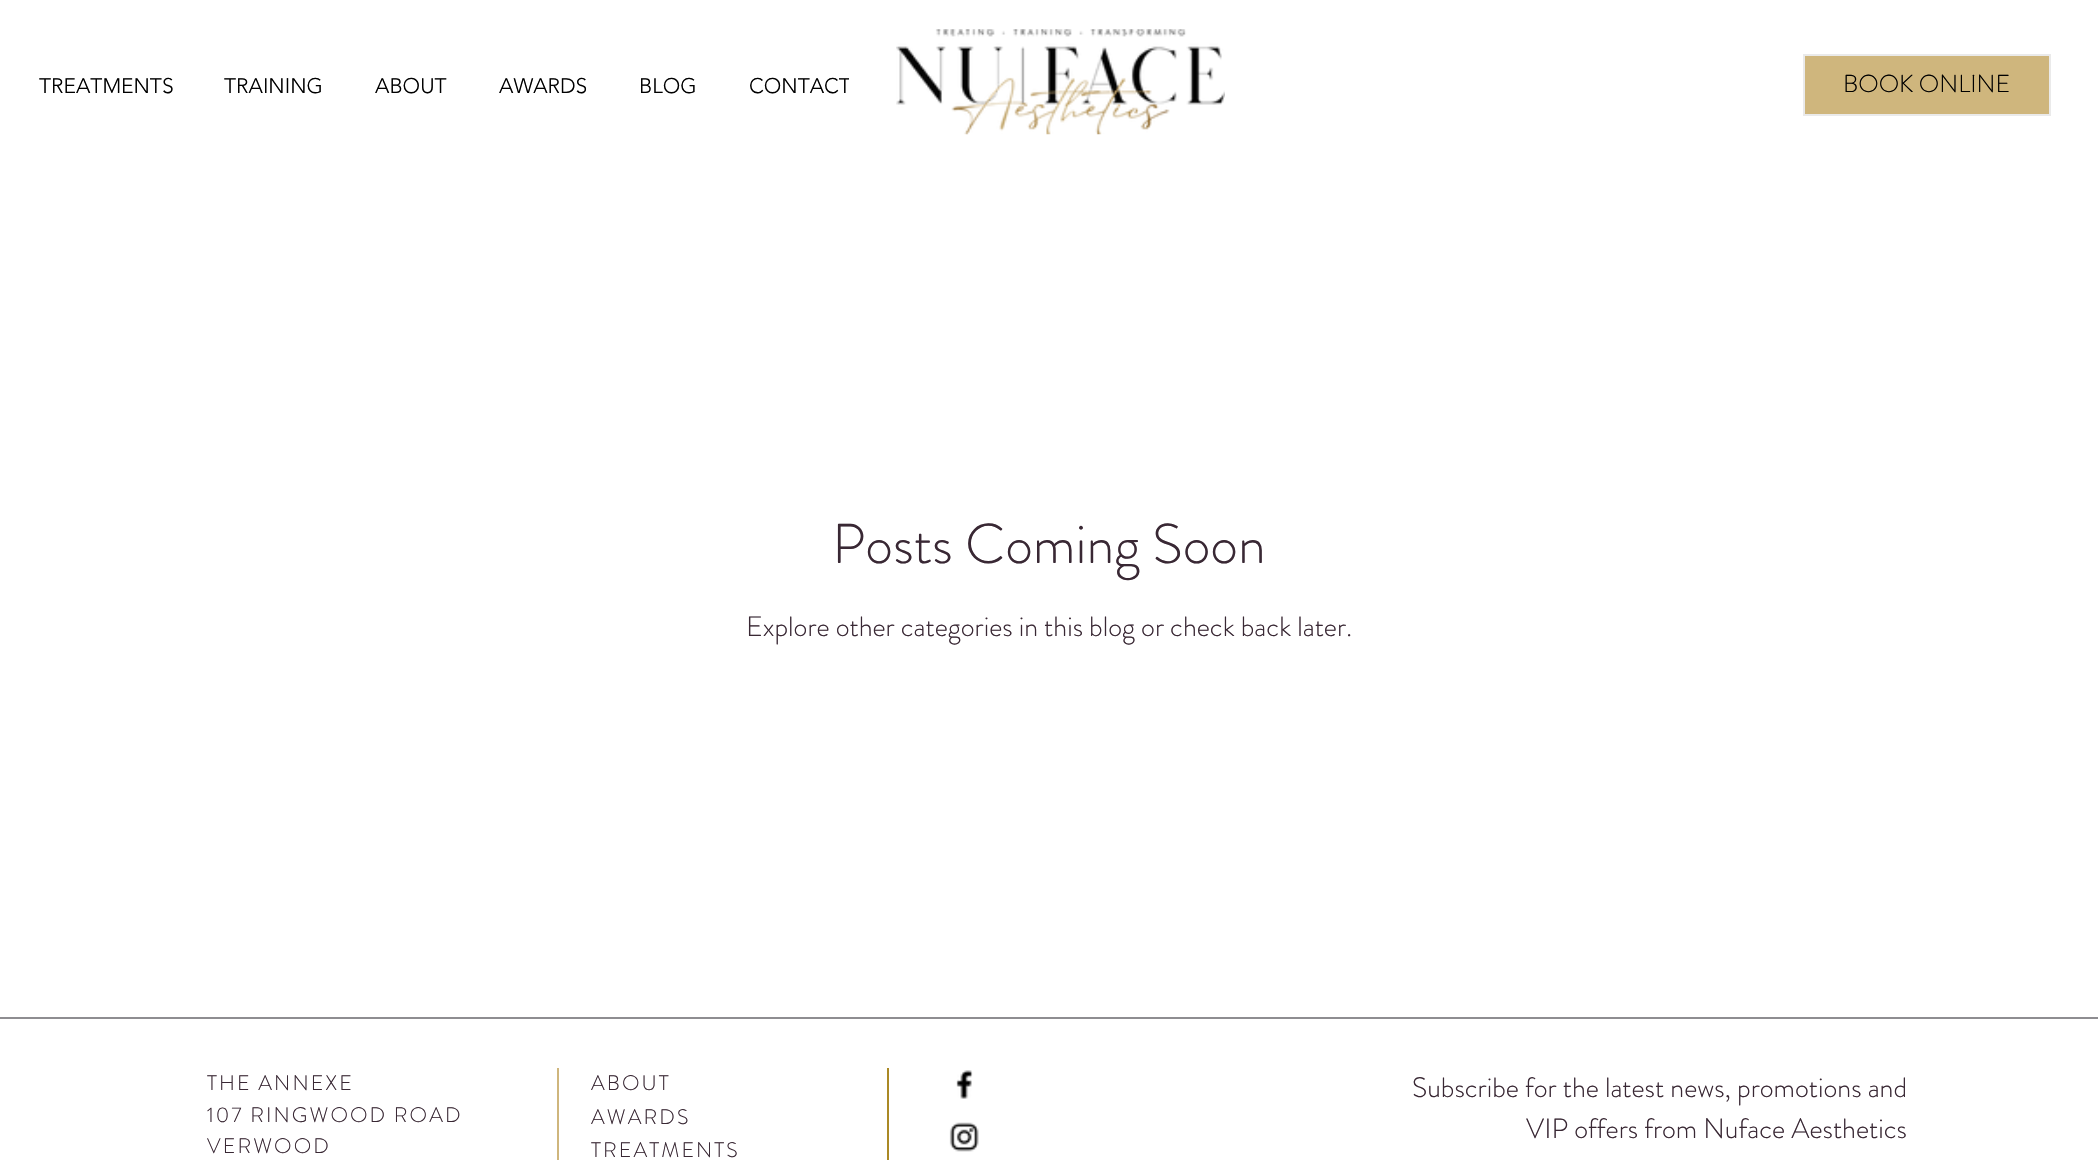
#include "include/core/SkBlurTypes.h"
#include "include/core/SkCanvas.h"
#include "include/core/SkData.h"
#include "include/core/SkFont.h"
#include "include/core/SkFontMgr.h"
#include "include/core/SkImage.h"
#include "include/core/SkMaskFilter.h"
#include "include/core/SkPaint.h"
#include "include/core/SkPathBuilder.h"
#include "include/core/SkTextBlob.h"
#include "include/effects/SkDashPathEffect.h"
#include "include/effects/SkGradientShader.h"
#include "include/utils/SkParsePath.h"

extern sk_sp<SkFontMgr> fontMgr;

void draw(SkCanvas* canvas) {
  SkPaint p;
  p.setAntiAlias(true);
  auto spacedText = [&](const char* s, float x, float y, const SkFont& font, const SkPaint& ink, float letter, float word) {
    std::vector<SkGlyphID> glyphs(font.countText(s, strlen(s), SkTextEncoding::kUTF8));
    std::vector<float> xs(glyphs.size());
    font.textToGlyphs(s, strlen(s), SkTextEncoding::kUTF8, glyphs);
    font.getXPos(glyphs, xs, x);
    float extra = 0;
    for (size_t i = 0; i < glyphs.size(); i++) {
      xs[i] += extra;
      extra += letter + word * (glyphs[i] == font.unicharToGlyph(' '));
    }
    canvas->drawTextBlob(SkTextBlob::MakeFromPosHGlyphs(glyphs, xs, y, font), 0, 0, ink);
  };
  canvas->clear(SK_ColorWHITE);
  canvas->drawImageRect(SkImages::DeferredFromEncodedData(SkData::MakeFromFileName("images/1.png")), SkRect::MakeLTRB(896, 29, 1225, 135), SkSamplingOptions());
  p.setColor(SkColorSetRGB(207, 182, 125));
  canvas->drawRect(SkRect::MakeLTRB(1804, 55, 2050, 115), p);
  p.setStyle(SkPaint::kStroke_Style);
  p.setStrokeWidth(2);
  p.setColor(SkColorSetRGB(234, 234, 234));
  canvas->drawRect(SkRect::MakeLTRB(1804, 55, 2050, 115), p);
  p.setStyle(SkPaint::kFill_Style);
  p.setColor(SkColorSetRGB(142, 141, 145));
  canvas->drawRect(SkRect::MakeLTRB(0, 1017, 2098, 1019), p);
  p.setColor(SkColorSetRGB(207, 182, 125));
  canvas->drawRect(SkRect::MakeLTRB(557, 1068, 559, 1160), p);
  p.setColor(SkColorSetRGB(170, 137, 37));
  canvas->drawRect(SkRect::MakeLTRB(887, 1068, 889, 1160), p);
  canvas->drawImageRect(SkImages::DeferredFromEncodedData(SkData::MakeFromFileName("images/2.png")), SkRect::MakeLTRB(956, 1070, 973, 1099), SkSamplingOptions());
  canvas->drawImageRect(SkImages::DeferredFromEncodedData(SkData::MakeFromFileName("images/3.png")), SkRect::MakeLTRB(949, 1122, 979, 1152), SkSamplingOptions());
  SkFont font1(fontMgr->matchFamilyStyle("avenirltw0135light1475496", SkFontStyle(300, SkFontStyle::kNormal_Width, SkFontStyle::kUpright_Slant)), 21);
  font1.setSubpixel(true);
  p.setColor(SK_ColorBLACK);
  canvas->drawString("TREATMENTS", 39, 93, font1, p);
  canvas->drawString("TRAINING", 224, 93, font1, p);
  canvas->drawString("ABOUT", 375, 93, font1, p);
  canvas->drawString("AWARDS", 499, 93, font1, p);
  canvas->drawString("BLOG", 639, 93, font1, p);
  canvas->drawString("CONTACT", 749, 93, font1, p);
  p.setColor(SK_ColorWHITE);
  canvas->drawRect(SkRect::MakeLTRB(849, 78, 851, 80), p);
  SkFont font2(fontMgr->matchFamilyStyle("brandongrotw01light", SkFontStyle(300, SkFontStyle::kNormal_Width, SkFontStyle::kUpright_Slant)), 24.5f);
  font2.setSubpixel(true);
  p.setColor(SK_ColorBLACK);
  canvas->drawString("BOOK ONLINE", 1843, 92, font2, p);
  SkFont font3(fontMgr->matchFamilyStyle("brandongrotw01light", SkFontStyle(300, SkFontStyle::kNormal_Width, SkFontStyle::kUpright_Slant)), 56);
  font3.setSubpixel(true);
  p.setColor(SkColorSetRGB(57, 40, 52));
  canvas->drawString("Posts Coming Soon", 832, 563, font3, p);
  SkFont font4(fontMgr->matchFamilyStyle("brandongrotw01light", SkFontStyle(300, SkFontStyle::kNormal_Width, SkFontStyle::kUpright_Slant)), 28);
  font4.setSubpixel(true);
  canvas->drawString("Explore other categories in this blog or check back later.", 746, 636, font4, p);
  SkFont font5(fontMgr->matchFamilyStyle("brandongrotw01light", SkFontStyle(300, SkFontStyle::kNormal_Width, SkFontStyle::kUpright_Slant)), 21);
  font5.setSubpixel(true);
  spacedText("THE ANNEXE", 207, 1090, font5, p, 2.1f, 0);
  spacedText("107 RINGWOOD ROAD", 207, 1122, font5, p, 2.1f, 0);
  spacedText("VERWOOD", 207, 1153, font5, p, 2.1f, 0);
  spacedText("ABOUT", 591, 1090, font5, p, 2.1f, 0);
  spacedText("AWARDS", 591, 1124, font5, p, 2.1f, 0);
  spacedText("TREATMENTS", 591, 1157, font5, p, 2.1f, 0);
  canvas->drawString("Subscribe for the latest news, promotions and", 1412, 1097, font4, p);
  canvas->drawString("VIP offers from Nuface Aesthetics", 1526, 1138, font4, p);
}
